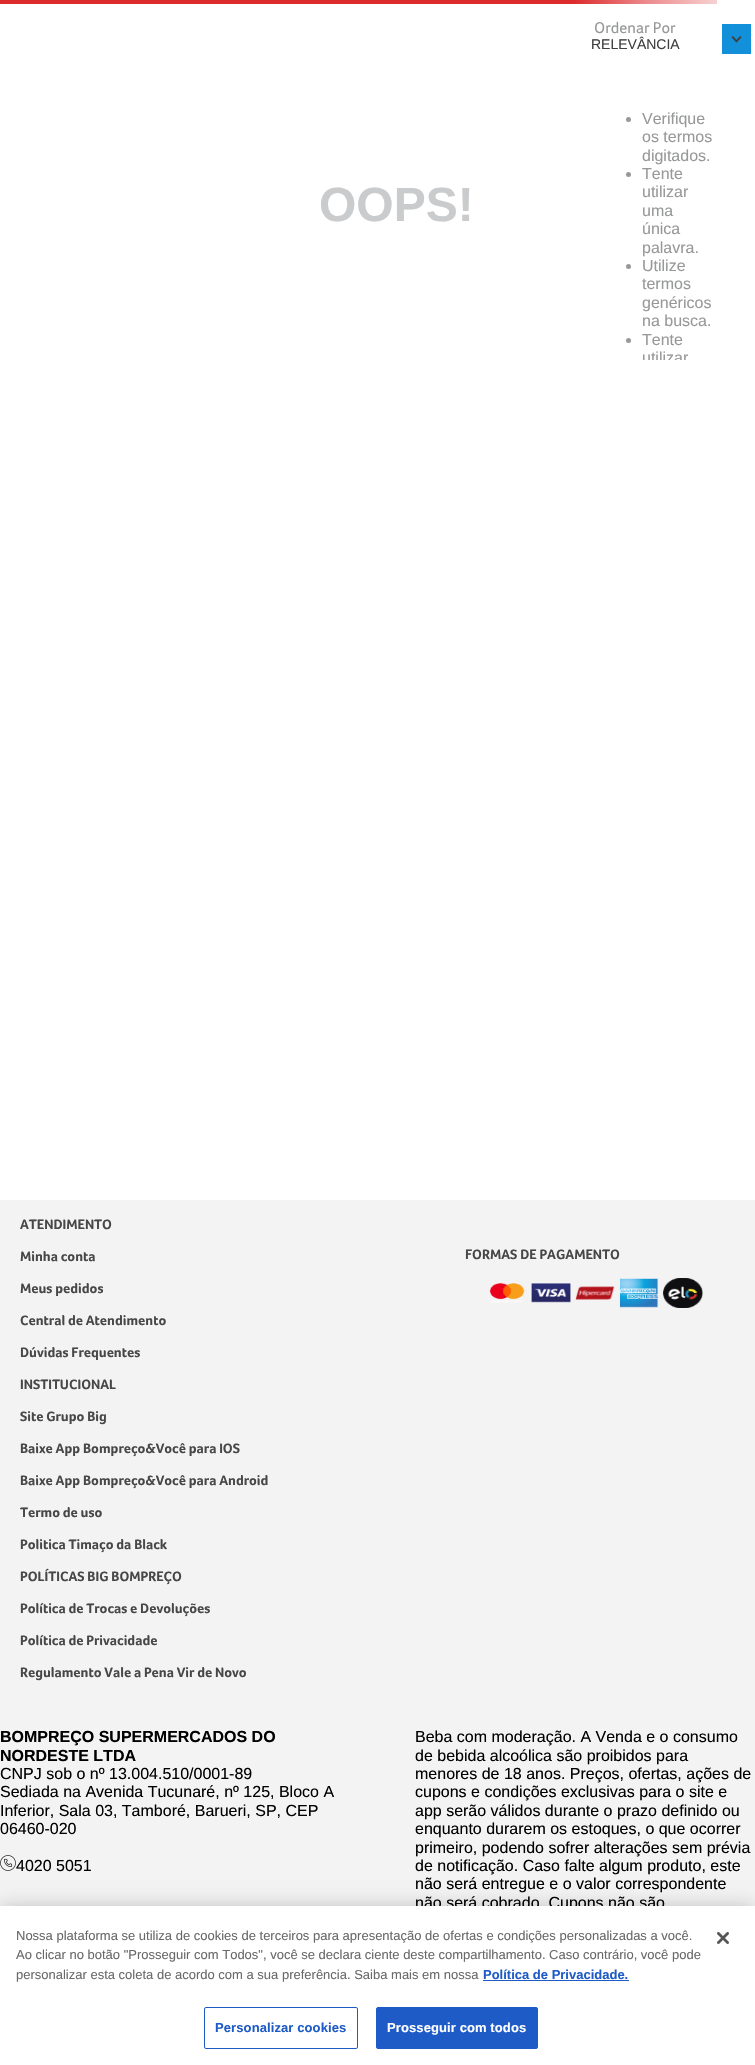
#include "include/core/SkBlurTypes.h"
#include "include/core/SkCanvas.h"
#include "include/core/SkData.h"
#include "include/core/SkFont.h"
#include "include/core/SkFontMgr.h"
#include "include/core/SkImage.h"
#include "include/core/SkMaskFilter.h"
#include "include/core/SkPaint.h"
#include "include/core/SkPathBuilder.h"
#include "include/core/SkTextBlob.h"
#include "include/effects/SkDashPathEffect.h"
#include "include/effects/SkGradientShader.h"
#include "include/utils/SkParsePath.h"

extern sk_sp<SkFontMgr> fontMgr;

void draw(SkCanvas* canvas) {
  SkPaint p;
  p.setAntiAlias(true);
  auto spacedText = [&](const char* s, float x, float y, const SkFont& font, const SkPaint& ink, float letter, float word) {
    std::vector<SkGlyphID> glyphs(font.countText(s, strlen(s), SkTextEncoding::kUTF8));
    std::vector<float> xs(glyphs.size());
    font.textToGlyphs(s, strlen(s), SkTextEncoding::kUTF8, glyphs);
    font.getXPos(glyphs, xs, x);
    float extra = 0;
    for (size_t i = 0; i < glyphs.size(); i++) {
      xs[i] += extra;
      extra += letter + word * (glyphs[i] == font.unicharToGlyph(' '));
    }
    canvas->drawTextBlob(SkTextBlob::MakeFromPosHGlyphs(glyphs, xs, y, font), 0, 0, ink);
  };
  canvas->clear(SK_ColorWHITE);
  {
    const SkColor colors[] = {SkColorSetRGB(220, 43, 45), SkColorSetRGB(236, 137, 139), SkColorSetRGB(247, 208, 208)};
    const float stops[] = {0.8f, 0.9f, 1};
    const SkPoint ends[] = {{0, 2}, {717, 2}};
    p.setShader(SkGradientShader::MakeLinear(ends, colors, stops, 3, SkTileMode::kClamp));
    p.setAlpha(255);
  }
  canvas->drawRect(SkRect::MakeLTRB(0, 0, 717, 4), p);
  p.setShader(nullptr);
  p.setColor(SkColorSetRGB(18, 144, 217));
  canvas->drawRect(SkRect::MakeLTRB(722, 24, 751, 54), p);
  canvas->drawImageRect(SkImages::DeferredFromEncodedData(SkData::MakeFromFileName("images/1.png")), SkRect::MakeLTRB(731, 36, 742, 43), SkSamplingOptions());
  p.setColor(SkColorSetRGB(151, 152, 153));
  canvas->drawCircle(628.5f, 119.5f, 2.5f, p);
  canvas->drawCircle(628.5f, 174.5f, 2.5f, p);
  canvas->drawCircle(628.5f, 266.5f, 2.5f, p);
  canvas->drawCircle(628.5f, 340.5f, 2.5f, p);
  p.setColor(SkColorSetRGB(243, 243, 243));
  canvas->drawRect(SkRect::MakeLTRB(0, 1200, 755, 1906), p);
  canvas->drawImageRect(SkImages::DeferredFromEncodedData(SkData::MakeFromFileName("images/2.png")), SkRect::MakeLTRB(489, 1283, 525, 1303), SkSamplingOptions());
  canvas->drawImageRect(SkImages::DeferredFromEncodedData(SkData::MakeFromFileName("images/3.png")), SkRect::MakeLTRB(531, 1283, 571, 1303), SkSamplingOptions());
  canvas->drawImageRect(SkImages::DeferredFromEncodedData(SkData::MakeFromFileName("images/4.png")), SkRect::MakeLTRB(575, 1286, 615, 1300), SkSamplingOptions());
  canvas->drawImageRect(SkImages::DeferredFromEncodedData(SkData::MakeFromFileName("images/5.png")), SkRect::MakeLTRB(619, 1278, 659, 1308), SkSamplingOptions());
  canvas->drawImageRect(SkImages::DeferredFromEncodedData(SkData::MakeFromFileName("images/6.png")), SkRect::MakeLTRB(663, 1278, 703, 1308), SkSamplingOptions());
  canvas->drawImageRect(SkImages::DeferredFromEncodedData(SkData::MakeFromFileName("images/7.png")), SkRect::MakeLTRB(0, 1855, 16, 1871), SkSamplingOptions());
  p.setColor(SkColorSetARGB(51, 0, 0, 0));
  p.setMaskFilter(SkMaskFilter::MakeBlur(kNormal_SkBlurStyle, 9));
  canvas->drawRect(SkRect::MakeLTRB(0, 1906, 755, 2065), p);
  p.setMaskFilter(nullptr);
  SkFont font1(fontMgr->matchFamilyStyle("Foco", SkFontStyle::Normal()), 16);
  font1.setSubpixel(true);
  p.setColor(SkColorSetRGB(151, 152, 153));
  canvas->drawString("Ordenar Por", 594, 33, font1, p);
  SkFont font2(fontMgr->matchFamilyStyle("Liberation Sans", SkFontStyle::Normal()), 14);
  font2.setSubpixel(true);
  p.setColor(SkColorSetRGB(63, 63, 64));
  canvas->drawString("RELEVÂNCIA", 591, 49, font2, p);
  SkFont font3(fontMgr->matchFamilyStyle("Liberation Sans", SkFontStyle::Bold()), 48);
  font3.setSubpixel(true);
  p.setColor(SkColorSetRGB(202, 203, 204));
  canvas->drawString("OOPS!", 319, 221, font3, p);
  SkFont font4(fontMgr->matchFamilyStyle("Liberation Sans", SkFontStyle::Normal()), 16);
  font4.setSubpixel(true);
  p.setColor(SkColorSetRGB(151, 152, 153));
  canvas->drawString("Verifique", 642, 124, font4, p);
  canvas->drawString("os termos", 642, 142, font4, p);
  canvas->drawString("digitados.", 642, 161, font4, p);
  canvas->drawString("Tente", 642, 179, font4, p);
  canvas->drawString("utilizar", 642, 197, font4, p);
  canvas->drawString("uma", 642, 216, font4, p);
  canvas->drawString("única", 642, 234, font4, p);
  canvas->drawString("palavra.", 642, 253, font4, p);
  canvas->drawString("Utilize", 642, 271, font4, p);
  canvas->drawString("termos", 642, 289, font4, p);
  canvas->drawString("genéricos", 642, 308, font4, p);
  canvas->drawString("na busca.", 642, 326, font4, p);
  canvas->drawString("Tente", 642, 345, font4, p);
  canvas->save();
  canvas->clipRect(SkRect::MakeLTRB(0, 0, 755, 360));
  canvas->drawString("utilizar", 642, 363, font4, p);
  canvas->restore();
  SkFont font5(fontMgr->matchFamilyStyle("Foco", SkFontStyle::Bold()), 14);
  font5.setSubpixel(true);
  p.setColor(SkColorSetRGB(71, 71, 71));
  canvas->drawString("ATENDIMENTO", 20, 1229, font5, p);
  canvas->drawString("Minha conta", 20, 1261, font5, p);
  canvas->drawString("Meus pedidos", 20, 1293, font5, p);
  canvas->drawString("Central de Atendimento", 20, 1325, font5, p);
  canvas->drawString("Dúvidas Frequentes", 20, 1357, font5, p);
  canvas->drawString("INSTITUCIONAL", 20, 1389, font5, p);
  canvas->drawString("Site Grupo Big", 20, 1421, font5, p);
  canvas->drawString("Baixe App Bompreço&Você para IOS", 20, 1453, font5, p);
  canvas->drawString("Baixe App Bompreço&Você para Android", 20, 1485, font5, p);
  canvas->drawString("Termo de uso", 20, 1517, font5, p);
  canvas->drawString("Politica Timaço da Black", 20, 1549, font5, p);
  canvas->drawString("POLÍTICAS BIG BOMPREÇO", 20, 1581, font5, p);
  canvas->drawString("Política de Trocas e Devoluções", 20, 1613, font5, p);
  canvas->drawString("Política de Privacidade", 20, 1645, font5, p);
  canvas->drawString("Regulamento Vale a Pena Vir de Novo", 20, 1677, font5, p);
  canvas->drawString("FORMAS DE PAGAMENTO", 465, 1259, font5, p);
  SkFont font6(fontMgr->matchFamilyStyle("Liberation Sans", SkFontStyle::Bold()), 16);
  font6.setSubpixel(true);
  p.setColor(SK_ColorBLACK);
  canvas->drawString("BOMPREÇO SUPERMERCADOS DO", 0, 1742, font6, p);
  canvas->drawString("NORDESTE LTDA", 0, 1761, font6, p);
  canvas->drawString("CNPJ sob o nº 13.004.510/0001-89", 0, 1779, font4, p);
  canvas->drawString("Sediada na Avenida Tucunaré, nº 125, Bloco A", 0, 1797, font4, p);
  canvas->drawString("Inferior, Sala 03, Tamboré, Barueri, SP, CEP", 0, 1816, font4, p);
  canvas->drawString("06460-020", 0, 1834, font4, p);
  canvas->drawString("4020 5051", 16, 1871, font4, p);
  canvas->drawString("Beba com moderação. A Venda e o consumo", 415, 1742, font4, p);
  canvas->drawString("de bebida alcoólica são proibidos para", 415, 1761, font4, p);
  canvas->drawString("menores de 18 anos. Preços, ofertas, ações de", 415, 1779, font4, p);
  canvas->drawString("cupons e condições exclusivas para o site e", 415, 1797, font4, p);
  canvas->drawString("app serão válidos durante o prazo definido ou", 415, 1816, font4, p);
  canvas->drawString("enquanto durarem os estoques, o que ocorrer", 415, 1834, font4, p);
  canvas->drawString("primeiro, podendo sofrer alterações sem prévia", 415, 1853, font4, p);
  canvas->drawString("de notificação. Caso falte algum produto, este", 415, 1871, font4, p);
  canvas->drawString("não será entregue e o valor correspondente", 415, 1889, font4, p);
  canvas->drawString("não será cobrado. Cupons não são", 415, 1908, font4, p);
  p.setColor(SK_ColorWHITE);
  canvas->drawRect(SkRect::MakeLTRB(0, 1906, 755, 2065), p);
  SkFont font7(fontMgr->matchFamilyStyle("Liberation Sans", SkFontStyle::Normal()), 13);
  font7.setSubpixel(true);
  p.setColor(SkColorSetRGB(105, 105, 105));
  canvas->drawString("Nossa plataforma se utiliza de cookies de terceiros para apresentação de ofertas e condições personalizadas a você.", 16, 1940, font7, p);
  canvas->drawString("Ao clicar no botão \"Prosseguir com Todos\", você se declara ciente deste compartilhamento. Caso contrário, você pode", 16, 1959, font7, p);
  canvas->drawString("personalizar esta coleta de acordo com a sua preferência. Saiba mais em nossa", 16, 1979, font7, p);
  SkFont font8(fontMgr->matchFamilyStyle("Liberation Sans", SkFontStyle::Bold()), 13);
  font8.setSubpixel(true);
  p.setColor(SkColorSetRGB(30, 91, 198));
  canvas->drawString("Política de Privacidade.", 483, 1979, font8, p);
  canvas->drawRect(SkRect::MakeLTRB(483, 1980, 629, 1981), p);
  p.setStyle(SkPaint::kStroke_Style);
  p.setStrokeWidth(1);
  canvas->drawRoundRect(SkRect::MakeLTRB(204.5f, 2007.5f, 357.5f, 2048.5f), 1.5f, 1.5f, p);
  p.setStyle(SkPaint::kFill_Style);
  spacedText("Personalizar cookies", 215, 2032, font8, p, 0.1f, 0);
  canvas->drawRoundRect(SkRect::MakeLTRB(376.5f, 2007.5f, 537.5f, 2048.5f), 1.5f, 1.5f, p);
  p.setStyle(SkPaint::kStroke_Style);
  canvas->drawRoundRect(SkRect::MakeLTRB(376.5f, 2007.5f, 537.5f, 2048.5f), 1.5f, 1.5f, p);
  p.setStyle(SkPaint::kFill_Style);
  p.setColor(SK_ColorWHITE);
  spacedText("Prosseguir com todos", 387, 2032, font8, p, 0.1f, 0);
  canvas->drawImageRect(SkImages::DeferredFromEncodedData(SkData::MakeFromFileName("images/8.png")), SkRect::MakeLTRB(717, 1932, 729, 1944), SkSamplingOptions());
}
